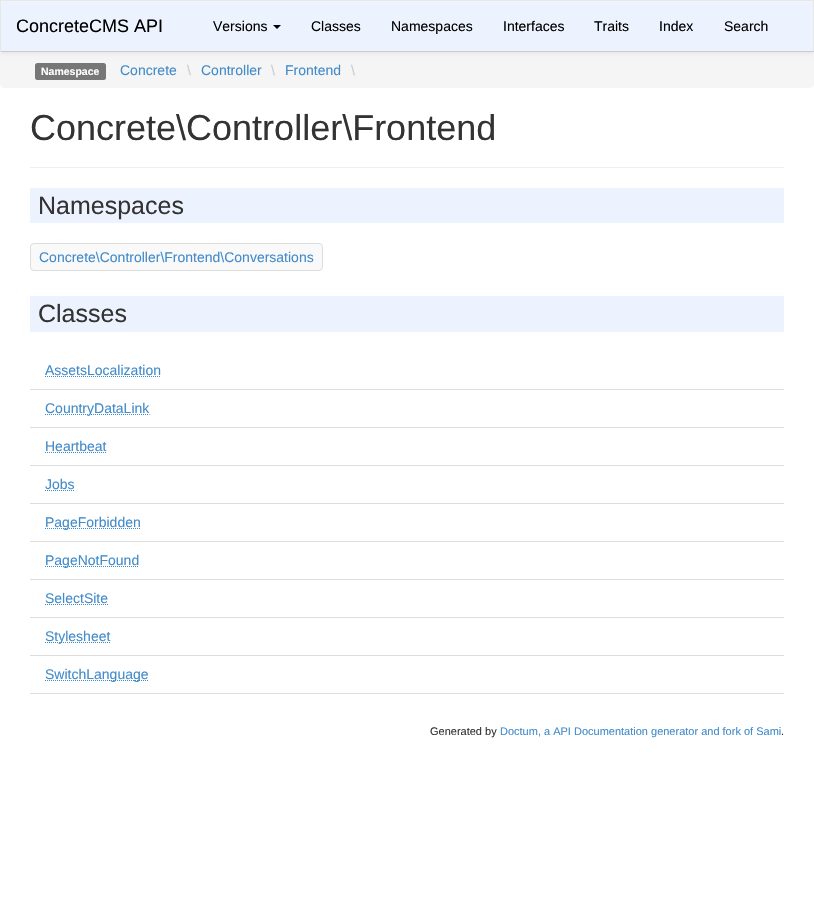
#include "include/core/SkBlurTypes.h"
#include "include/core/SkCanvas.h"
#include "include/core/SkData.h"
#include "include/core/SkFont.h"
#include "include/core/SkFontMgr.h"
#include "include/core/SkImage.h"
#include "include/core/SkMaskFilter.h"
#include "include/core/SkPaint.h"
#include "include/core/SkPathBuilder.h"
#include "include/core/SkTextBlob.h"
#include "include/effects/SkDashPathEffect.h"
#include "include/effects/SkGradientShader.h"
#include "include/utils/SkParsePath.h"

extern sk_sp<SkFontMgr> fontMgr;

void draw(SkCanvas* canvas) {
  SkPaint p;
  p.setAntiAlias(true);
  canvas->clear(SK_ColorWHITE);
  p.setColor(SkColorSetRGB(245, 245, 245));
  canvas->drawPath(SkPathBuilder().moveTo(0, 52).lineTo(814, 52).lineTo(814, 84).cubicTo(814, 86, 812, 88, 810, 88).lineTo(4, 88).cubicTo(2, 88, 0, 86, 0, 84).close().detach(), p);
  p.setColor(SkColorSetARGB(18, 0, 0, 0));
  p.setMaskFilter(SkMaskFilter::MakeBlur(kNormal_SkBlurStyle, 2.5f));
  canvas->drawRect(SkRect::MakeLTRB(0, 1, 814, 53), p);
  p.setMaskFilter(nullptr);
  p.setColor(SkColorSetRGB(237, 243, 254));
  canvas->drawRect(SkRect::MakeLTRB(1, 2, 813, 51), p);
  p.setColor(SkColorSetRGB(240, 245, 254));
  canvas->drawRect(SkRect::MakeLTRB(1, 1, 813, 2), p);
  p.setColor(SkColorSetRGB(231, 231, 231));
  canvas->drawRect(SkRect::MakeLTRB(0, 0, 814, 1), p);
  canvas->drawRect(SkRect::MakeLTRB(813, 0, 814, 52), p);
  p.setColor(SkColorSetRGB(204, 204, 204));
  canvas->drawRect(SkRect::MakeLTRB(0, 51, 814, 52), p);
  p.setColor(SkColorSetRGB(231, 231, 231));
  canvas->drawRect(SkRect::MakeLTRB(0, 0, 1, 52), p);
  p.setColor(SK_ColorBLACK);
  canvas->drawPath(SkPathBuilder().moveTo(273, 25).lineTo(281, 25).lineTo(277, 29).close().detach(), p);
  p.setColor(SkColorSetRGB(119, 119, 119));
  canvas->drawRoundRect(SkRect::MakeLTRB(35, 63, 106, 80), 2.5f, 2.5f, p);
  p.setColor(SkColorSetRGB(238, 238, 238));
  canvas->drawRect(SkRect::MakeLTRB(30, 167, 784, 168), p);
  p.setColor(SkColorSetRGB(237, 243, 254));
  canvas->drawRect(SkRect::MakeLTRB(30, 188, 784, 223), p);
  p.setColor(SkColorSetRGB(249, 249, 249));
  canvas->drawRoundRect(SkRect::MakeLTRB(30.5f, 243.5f, 322.5f, 270.5f), 3.5f, 3.5f, p);
  p.setStyle(SkPaint::kStroke_Style);
  p.setStrokeWidth(1);
  p.setColor(SkColorSetRGB(221, 221, 221));
  canvas->drawRoundRect(SkRect::MakeLTRB(30.5f, 243.5f, 322.5f, 270.5f), 3.5f, 3.5f, p);
  p.setStyle(SkPaint::kFill_Style);
  p.setColor(SkColorSetRGB(237, 243, 254));
  canvas->drawRect(SkRect::MakeLTRB(30, 296, 784, 332), p);
  p.setColor(SkColorSetRGB(221, 221, 221));
  canvas->drawRect(SkRect::MakeLTRB(30, 389, 784, 390), p);
  p.setStyle(SkPaint::kStroke_Style);
  p.setColor(SkColorSetRGB(66, 139, 202));
  p.setPathEffect(SkDashPathEffect::Make({{1, 1}}, 0));
  canvas->drawPath(SkPathBuilder().moveTo(45, 376.5f).lineTo(161, 376.5f).detach(), p);
  p.setPathEffect(nullptr);
  p.setStyle(SkPaint::kFill_Style);
  p.setColor(SkColorSetRGB(221, 221, 221));
  canvas->drawRect(SkRect::MakeLTRB(30, 427, 784, 428), p);
  p.setStyle(SkPaint::kStroke_Style);
  p.setColor(SkColorSetRGB(66, 139, 202));
  p.setPathEffect(SkDashPathEffect::Make({{1, 1}}, 0));
  canvas->drawPath(SkPathBuilder().moveTo(45, 414.5f).lineTo(149.5f, 414.5f).detach(), p);
  p.setPathEffect(nullptr);
  p.setStyle(SkPaint::kFill_Style);
  p.setColor(SkColorSetRGB(221, 221, 221));
  canvas->drawRect(SkRect::MakeLTRB(30, 465, 784, 466), p);
  p.setStyle(SkPaint::kStroke_Style);
  p.setColor(SkColorSetRGB(66, 139, 202));
  p.setPathEffect(SkDashPathEffect::Make({{1, 1}}, 0));
  canvas->drawPath(SkPathBuilder().moveTo(45, 452.5f).lineTo(106.5f, 452.5f).detach(), p);
  p.setPathEffect(nullptr);
  p.setStyle(SkPaint::kFill_Style);
  p.setColor(SkColorSetRGB(221, 221, 221));
  canvas->drawRect(SkRect::MakeLTRB(30, 503, 784, 504), p);
  p.setStyle(SkPaint::kStroke_Style);
  p.setColor(SkColorSetRGB(66, 139, 202));
  p.setPathEffect(SkDashPathEffect::Make({{1, 1}}, 0));
  canvas->drawPath(SkPathBuilder().moveTo(45, 490.5f).lineTo(74.5f, 490.5f).detach(), p);
  p.setPathEffect(nullptr);
  p.setStyle(SkPaint::kFill_Style);
  p.setColor(SkColorSetRGB(221, 221, 221));
  canvas->drawRect(SkRect::MakeLTRB(30, 541, 784, 542), p);
  p.setStyle(SkPaint::kStroke_Style);
  p.setColor(SkColorSetRGB(66, 139, 202));
  p.setPathEffect(SkDashPathEffect::Make({{1, 1}}, 0));
  canvas->drawPath(SkPathBuilder().moveTo(45, 528.5f).lineTo(141, 528.5f).detach(), p);
  p.setPathEffect(nullptr);
  p.setStyle(SkPaint::kFill_Style);
  p.setColor(SkColorSetRGB(221, 221, 221));
  canvas->drawRect(SkRect::MakeLTRB(30, 579, 784, 580), p);
  p.setStyle(SkPaint::kStroke_Style);
  p.setColor(SkColorSetRGB(66, 139, 202));
  p.setPathEffect(SkDashPathEffect::Make({{1, 1}}, 0));
  canvas->drawPath(SkPathBuilder().moveTo(45, 566.5f).lineTo(139, 566.5f).detach(), p);
  p.setPathEffect(nullptr);
  p.setStyle(SkPaint::kFill_Style);
  p.setColor(SkColorSetRGB(221, 221, 221));
  canvas->drawRect(SkRect::MakeLTRB(30, 617, 784, 618), p);
  p.setStyle(SkPaint::kStroke_Style);
  p.setColor(SkColorSetRGB(66, 139, 202));
  p.setPathEffect(SkDashPathEffect::Make({{1, 1}}, 0));
  canvas->drawPath(SkPathBuilder().moveTo(45, 604.5f).lineTo(108, 604.5f).detach(), p);
  p.setPathEffect(nullptr);
  p.setStyle(SkPaint::kFill_Style);
  p.setColor(SkColorSetRGB(221, 221, 221));
  canvas->drawRect(SkRect::MakeLTRB(30, 655, 784, 656), p);
  p.setStyle(SkPaint::kStroke_Style);
  p.setColor(SkColorSetRGB(66, 139, 202));
  p.setPathEffect(SkDashPathEffect::Make({{1, 1}}, 0));
  canvas->drawPath(SkPathBuilder().moveTo(45, 642.5f).lineTo(110.5f, 642.5f).detach(), p);
  p.setPathEffect(nullptr);
  p.setStyle(SkPaint::kFill_Style);
  p.setColor(SkColorSetRGB(221, 221, 221));
  canvas->drawRect(SkRect::MakeLTRB(30, 693, 784, 694), p);
  p.setStyle(SkPaint::kStroke_Style);
  p.setColor(SkColorSetRGB(66, 139, 202));
  p.setPathEffect(SkDashPathEffect::Make({{1, 1}}, 0));
  canvas->drawPath(SkPathBuilder().moveTo(45, 680.5f).lineTo(148.5f, 680.5f).detach(), p);
  p.setPathEffect(nullptr);
  SkFont font1(fontMgr->matchFamilyStyle("Liberation Sans", SkFontStyle::Normal()), 18);
  font1.setSubpixel(true);
  p.setStyle(SkPaint::kFill_Style);
  p.setColor(SK_ColorBLACK);
  canvas->drawString("ConcreteCMS API", 16, 32, font1, p);
  SkFont font2(fontMgr->matchFamilyStyle("Liberation Sans", SkFontStyle::Normal()), 14);
  font2.setSubpixel(true);
  canvas->drawString("Versions", 213, 31, font2, p);
  canvas->drawString("Classes", 311, 31, font2, p);
  canvas->drawString("Namespaces", 391, 31, font2, p);
  canvas->drawString("Interfaces", 503, 31, font2, p);
  canvas->drawString("Traits", 594, 31, font2, p);
  canvas->drawString("Index", 659, 31, font2, p);
  canvas->drawString("Search", 724, 31, font2, p);
  SkFont font3(fontMgr->matchFamilyStyle("Liberation Sans", SkFontStyle::Bold()), 10.5f);
  font3.setSubpixel(true);
  p.setColor(SK_ColorWHITE);
  canvas->drawString("Namespace", 41, 75, font3, p);
  p.setColor(SkColorSetRGB(66, 139, 202));
  canvas->drawString("Concrete", 120, 75, font2, p);
  p.setColor(SkColorSetRGB(204, 204, 204));
  canvas->drawString("\\", 187, 75, font2, p);
  p.setColor(SkColorSetRGB(66, 139, 202));
  canvas->drawString("Controller", 201, 75, font2, p);
  p.setColor(SkColorSetRGB(204, 204, 204));
  canvas->drawString("\\", 271, 75, font2, p);
  p.setColor(SkColorSetRGB(66, 139, 202));
  canvas->drawString("Frontend", 285, 75, font2, p);
  p.setColor(SkColorSetRGB(204, 204, 204));
  canvas->drawString("\\", 351, 75, font2, p);
  SkFont font4(fontMgr->matchFamilyStyle("Liberation Sans", SkFontStyle::Normal()), 36);
  font4.setSubpixel(true);
  p.setColor(SkColorSetRGB(51, 51, 51));
  canvas->drawString("Concrete\\Controller\\Frontend", 30, 140, font4, p);
  SkFont font5(fontMgr->matchFamilyStyle("Liberation Sans", SkFontStyle::Normal()), 25);
  font5.setSubpixel(true);
  canvas->drawString("Namespaces", 38, 214, font5, p);
  p.setColor(SkColorSetRGB(66, 139, 202));
  canvas->drawString("Concrete\\Controller\\Frontend\\Conversations", 39, 262, font2, p);
  p.setColor(SkColorSetRGB(51, 51, 51));
  canvas->drawString("Classes", 38, 322, font5, p);
  p.setColor(SkColorSetRGB(66, 139, 202));
  canvas->drawString("AssetsLocalization", 45, 375, font2, p);
  canvas->drawString("CountryDataLink", 45, 413, font2, p);
  canvas->drawString("Heartbeat", 45, 451, font2, p);
  canvas->drawString("Jobs", 45, 489, font2, p);
  canvas->drawString("PageForbidden", 45, 527, font2, p);
  canvas->drawString("PageNotFound", 45, 565, font2, p);
  canvas->drawString("SelectSite", 45, 603, font2, p);
  canvas->drawString("Stylesheet", 45, 641, font2, p);
  canvas->drawString("SwitchLanguage", 45, 679, font2, p);
  SkFont font6(fontMgr->matchFamilyStyle("Liberation Sans", SkFontStyle::Normal()), 11);
  font6.setSubpixel(true);
  p.setColor(SkColorSetRGB(51, 51, 51));
  canvas->drawString("Generated by", 430, 735, font6, p);
  p.setColor(SkColorSetRGB(66, 139, 202));
  canvas->drawString("Doctum, a API Documentation generator and fork of Sami", 500, 735, font6, p);
  p.setColor(SkColorSetRGB(51, 51, 51));
  canvas->drawString(".", 781, 735, font6, p);
}
